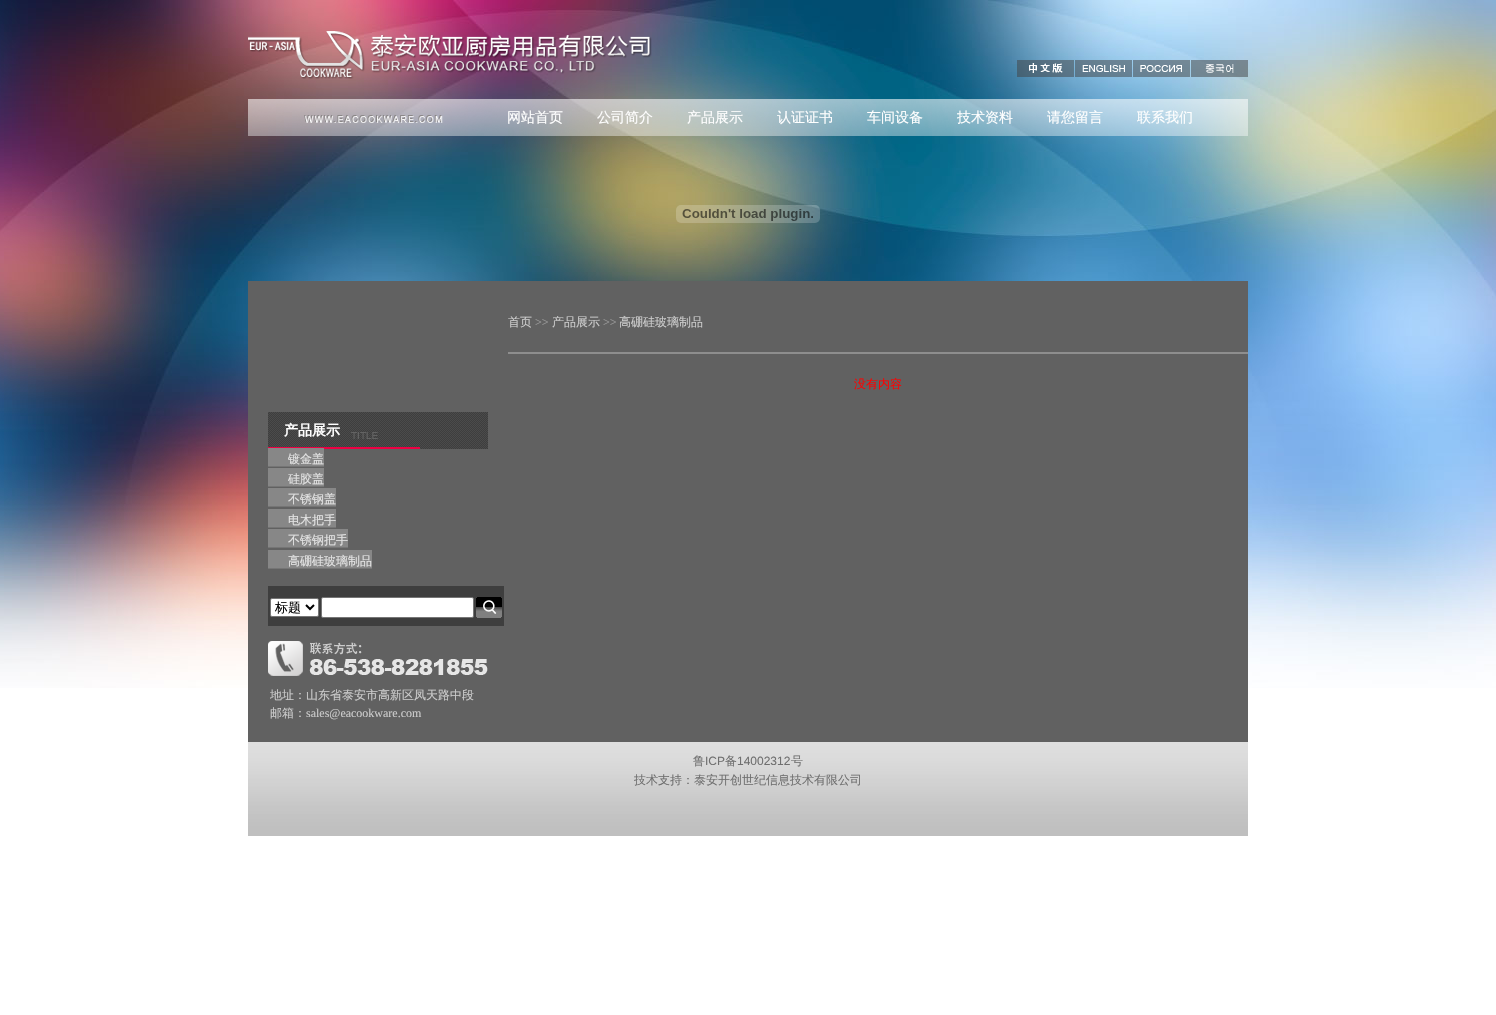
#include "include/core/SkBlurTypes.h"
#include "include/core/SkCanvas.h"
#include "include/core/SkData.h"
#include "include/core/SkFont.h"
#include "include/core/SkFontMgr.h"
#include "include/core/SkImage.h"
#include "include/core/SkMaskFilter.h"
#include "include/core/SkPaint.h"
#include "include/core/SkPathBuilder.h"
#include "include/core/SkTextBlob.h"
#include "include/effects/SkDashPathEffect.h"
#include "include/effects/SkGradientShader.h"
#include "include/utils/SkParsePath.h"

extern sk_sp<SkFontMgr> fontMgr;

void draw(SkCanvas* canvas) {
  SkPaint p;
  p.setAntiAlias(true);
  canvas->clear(SK_ColorWHITE);
  canvas->drawImageRect(SkImages::DeferredFromEncodedData(SkData::MakeFromFileName("images/1.png")), SkRect::MakeLTRB(0, 0, 1496, 688), SkSamplingOptions());
  canvas->drawImageRect(SkImages::DeferredFromEncodedData(SkData::MakeFromFileName("images/2.png")), SkRect::MakeLTRB(248, 31, 652, 79), SkSamplingOptions());
  canvas->drawImageRect(SkImages::DeferredFromEncodedData(SkData::MakeFromFileName("images/3.png")), SkRect::MakeLTRB(1017, 60, 1248, 77), SkSamplingOptions());
  canvas->drawImageRect(SkImages::DeferredFromEncodedData(SkData::MakeFromFileName("images/4.png")), SkRect::MakeLTRB(248, 99, 1248, 136), SkSamplingOptions());
  canvas->drawImageRect(SkImages::DeferredFromEncodedData(SkData::MakeFromFileName("images/5.png")), SkRect::MakeLTRB(676, 205, 820, 223), SkSamplingOptions());
  p.setColor(SkColorSetRGB(97, 97, 97));
  canvas->drawRect(SkRect::MakeLTRB(248, 281, 1248, 305), p);
  canvas->drawRect(SkRect::MakeLTRB(248, 305, 1248, 742), p);
  p.setColor(SkColorSetRGB(142, 142, 142));
  canvas->drawRect(SkRect::MakeLTRB(508, 352, 1248, 354), p);
  canvas->drawImageRect(SkImages::DeferredFromEncodedData(SkData::MakeFromFileName("images/6.png")), SkRect::MakeLTRB(268, 412, 488, 449), SkSamplingOptions());
  p.setColor(SkColorSetRGB(135, 135, 135));
  canvas->drawRect(SkRect::MakeLTRB(268, 448, 324, 466), p);
  p.setColor(SkColorSetRGB(117, 117, 117));
  canvas->drawRect(SkRect::MakeLTRB(268, 466, 324, 467), p);
  p.setColor(SkColorSetRGB(135, 135, 135));
  canvas->drawRect(SkRect::MakeLTRB(268, 468, 324, 486), p);
  p.setColor(SkColorSetRGB(117, 117, 117));
  canvas->drawRect(SkRect::MakeLTRB(268, 486, 324, 487), p);
  p.setColor(SkColorSetRGB(135, 135, 135));
  canvas->drawRect(SkRect::MakeLTRB(268, 488, 336, 506), p);
  p.setColor(SkColorSetRGB(117, 117, 117));
  canvas->drawRect(SkRect::MakeLTRB(268, 506, 336, 507), p);
  p.setColor(SkColorSetRGB(135, 135, 135));
  canvas->drawRect(SkRect::MakeLTRB(268, 509, 336, 527), p);
  p.setColor(SkColorSetRGB(117, 117, 117));
  canvas->drawRect(SkRect::MakeLTRB(268, 527, 336, 528), p);
  p.setColor(SkColorSetRGB(135, 135, 135));
  canvas->drawRect(SkRect::MakeLTRB(268, 529, 348, 547), p);
  p.setColor(SkColorSetRGB(117, 117, 117));
  canvas->drawRect(SkRect::MakeLTRB(268, 547, 348, 548), p);
  p.setColor(SkColorSetRGB(135, 135, 135));
  canvas->drawRect(SkRect::MakeLTRB(268, 550, 372, 568), p);
  p.setColor(SkColorSetRGB(117, 117, 117));
  canvas->drawRect(SkRect::MakeLTRB(268, 568, 372, 569), p);
  p.setColor(SkColorSetRGB(62, 62, 62));
  canvas->drawRect(SkRect::MakeLTRB(268, 586, 504, 626), p);
  p.setColor(SK_ColorWHITE);
  canvas->drawRoundRect(SkRect::MakeLTRB(270.5f, 598.5f, 318.5f, 616.5f), 1.5f, 1.5f, p);
  p.setStyle(SkPaint::kStroke_Style);
  p.setStrokeWidth(1);
  p.setColor(SkColorSetRGB(118, 118, 118));
  canvas->drawRoundRect(SkRect::MakeLTRB(270.5f, 598.5f, 318.5f, 616.5f), 1.5f, 1.5f, p);
  p.setStrokeWidth(2);
  p.setColor(SK_ColorBLACK);
  canvas->drawPath(SkPathBuilder().moveTo(306, 605).lineTo(310, 609).lineTo(314, 605).detach(), p);
  p.setStyle(SkPaint::kFill_Style);
  p.setColor(SK_ColorWHITE);
  canvas->drawRoundRect(SkRect::MakeLTRB(321.5f, 597.5f, 473.5f, 617.5f), 1.5f, 1.5f, p);
  p.setStyle(SkPaint::kStroke_Style);
  p.setStrokeWidth(1);
  p.setColor(SkColorSetRGB(118, 118, 118));
  canvas->drawRoundRect(SkRect::MakeLTRB(321.5f, 597.5f, 473.5f, 617.5f), 1.5f, 1.5f, p);
  canvas->drawImageRect(SkImages::DeferredFromEncodedData(SkData::MakeFromFileName("images/7.png")), SkRect::MakeLTRB(476, 597, 502, 618), SkSamplingOptions());
  canvas->drawImageRect(SkImages::DeferredFromEncodedData(SkData::MakeFromFileName("images/8.png")), SkRect::MakeLTRB(268, 641, 488, 676), SkSamplingOptions());
  canvas->drawImageRect(SkImages::DeferredFromEncodedData(SkData::MakeFromFileName("images/9.png")), SkRect::MakeLTRB(248, 742, 1248, 836), SkSamplingOptions());
  SkFont font1(fontMgr->matchFamilyStyle("WenQuanYi Zen Hei", SkFontStyle(500, SkFontStyle::kNormal_Width, SkFontStyle::kUpright_Slant)), 14);
  font1.setSubpixel(true);
  p.setStyle(SkPaint::kFill_Style);
  p.setColor(SK_ColorWHITE);
  canvas->drawString("网站首页", 507, 122, font1, p);
  canvas->drawString("公司简介", 597, 122, font1, p);
  canvas->drawString("产品展示", 687, 122, font1, p);
  canvas->drawString("认证证书", 777, 122, font1, p);
  canvas->drawString("车间设备", 867, 122, font1, p);
  canvas->drawString("技术资料", 957, 122, font1, p);
  canvas->drawString("请您留言", 1047, 122, font1, p);
  canvas->drawString("联系我们", 1137, 122, font1, p);
  SkFont font2(fontMgr->matchFamilyStyle("WenQuanYi Zen Hei", SkFontStyle(500, SkFontStyle::kNormal_Width, SkFontStyle::kUpright_Slant)), 12);
  font2.setSubpixel(true);
  p.setColor(SkColorSetRGB(204, 204, 204));
  canvas->drawString("首页", 508, 326, font2, p);
  SkFont font3(fontMgr->matchFamilyStyle("Liberation Serif", SkFontStyle::Normal()), 12);
  font3.setSubpixel(true);
  p.setColor(SkColorSetRGB(153, 153, 153));
  canvas->drawString(">>", 535, 326, font3, p);
  p.setColor(SkColorSetRGB(204, 204, 204));
  canvas->drawString("产品展示", 552, 326, font2, p);
  p.setColor(SkColorSetRGB(153, 153, 153));
  canvas->drawString(">>", 603, 326, font3, p);
  p.setColor(SkColorSetRGB(204, 204, 204));
  canvas->drawString("高硼硅玻璃制品", 619, 326, font2, p);
  p.setColor(SkColorSetRGB(255, 0, 0));
  canvas->drawString("没有内容", 854, 388, font2, p);
  SkFont font4(fontMgr->matchFamilyStyle("WenQuanYi Zen Hei", SkFontStyle::Bold()), 14);
  font4.setSubpixel(true);
  p.setColor(SK_ColorWHITE);
  canvas->drawString("产品展示", 284, 435, font4, p);
  p.setColor(SkColorSetRGB(227, 227, 227));
  canvas->drawString("镀金盖", 288, 463, font2, p);
  canvas->drawString("硅胶盖", 288, 483, font2, p);
  canvas->drawString("不锈钢盖", 288, 503, font2, p);
  canvas->drawString("电木把手", 288, 524, font2, p);
  canvas->drawString("不锈钢把手", 288, 544, font2, p);
  canvas->drawString("高硼硅玻璃制品", 288, 565, font2, p);
  SkFont font5(fontMgr->matchFamilyStyle("WenQuanYi Zen Hei", SkFontStyle(500, SkFontStyle::kNormal_Width, SkFontStyle::kUpright_Slant)), 13);
  font5.setSubpixel(true);
  p.setColor(SK_ColorBLACK);
  canvas->drawString("标题", 275, 612, font5, p);
  p.setColor(SkColorSetRGB(204, 204, 204));
  canvas->drawString("地址：山东省泰安市高新区凤天路中段", 270, 699, font2, p);
  canvas->drawString("邮箱：", 270, 717, font2, p);
  canvas->drawString("sales@eacookware.com", 306, 717, font3, p);
  p.setColor(SkColorSetRGB(111, 111, 111));
  canvas->drawString("鲁", 693, 765, font2, p);
  SkFont font6(fontMgr->matchFamilyStyle("Liberation Sans", SkFontStyle::Normal()), 12);
  font6.setSubpixel(true);
  canvas->drawString("ICP", 705, 765, font6, p);
  canvas->drawString("备", 725, 765, font2, p);
  canvas->drawString("14002312", 737, 765, font6, p);
  canvas->drawString("号", 791, 765, font2, p);
  canvas->drawString("技术支持：泰安开创世纪信息技术有限公司", 634, 784, font2, p);
}
